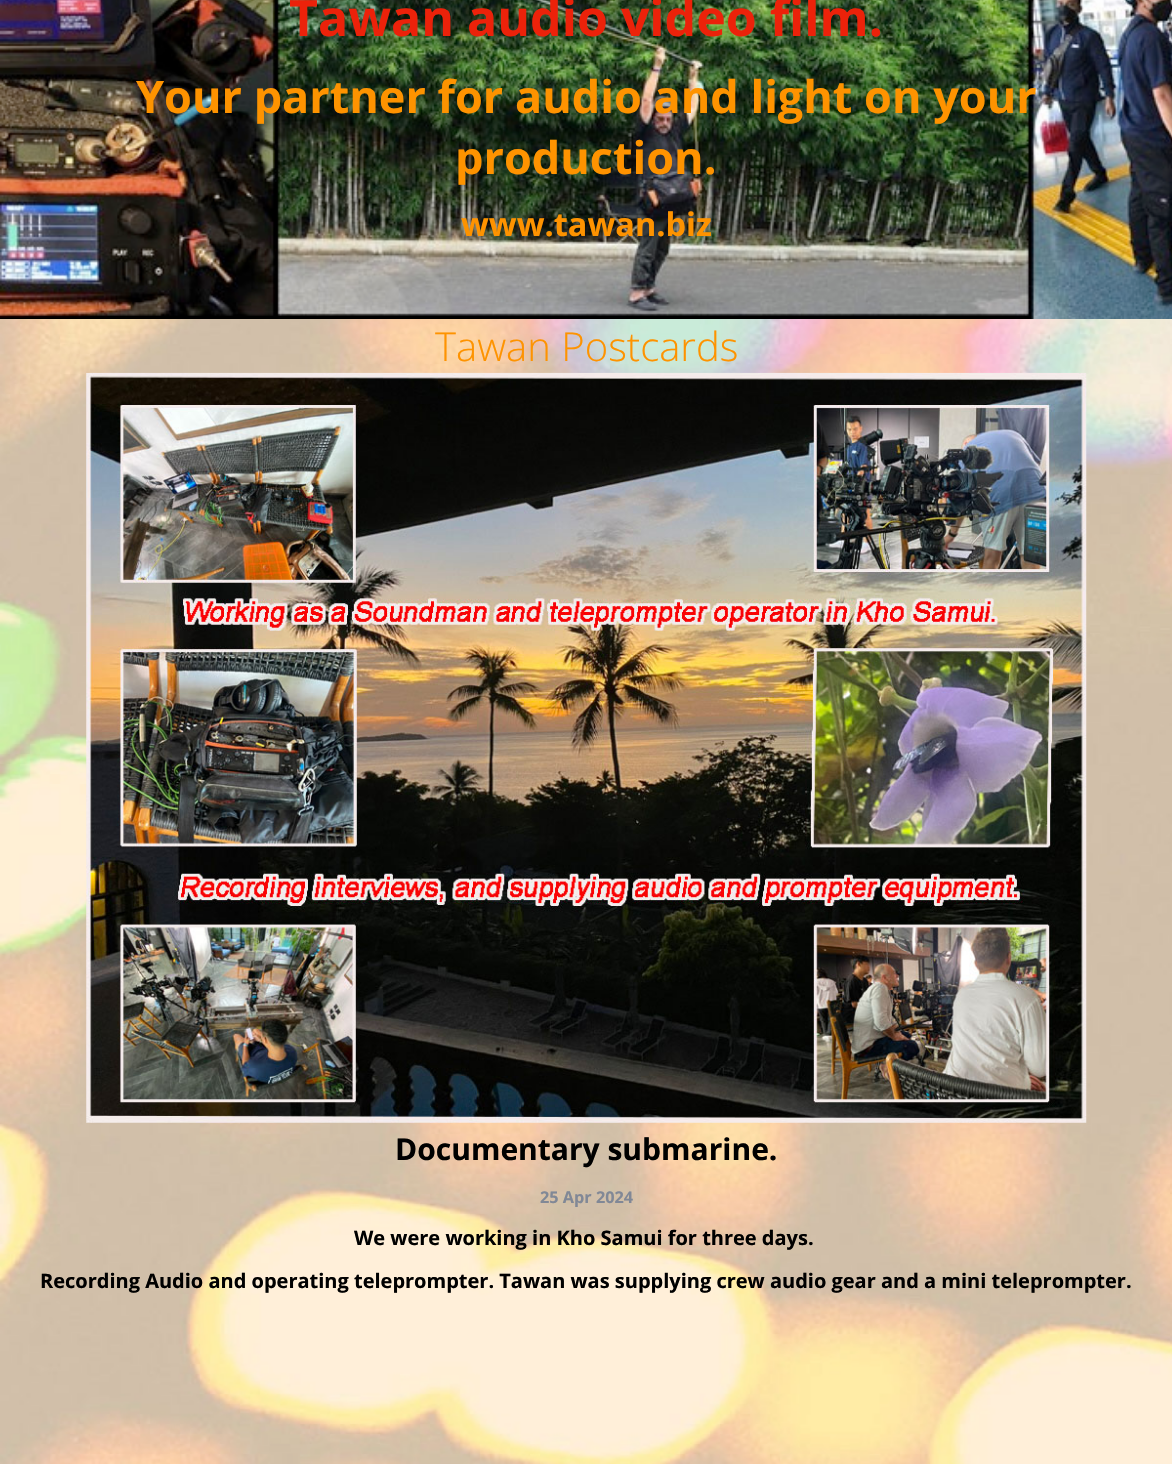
#include "include/core/SkBlurTypes.h"
#include "include/core/SkCanvas.h"
#include "include/core/SkData.h"
#include "include/core/SkFont.h"
#include "include/core/SkFontMgr.h"
#include "include/core/SkImage.h"
#include "include/core/SkMaskFilter.h"
#include "include/core/SkPaint.h"
#include "include/core/SkPathBuilder.h"
#include "include/core/SkTextBlob.h"
#include "include/effects/SkDashPathEffect.h"
#include "include/effects/SkGradientShader.h"
#include "include/utils/SkParsePath.h"

extern sk_sp<SkFontMgr> fontMgr;

void draw(SkCanvas* canvas) {
  SkPaint p;
  p.setAntiAlias(true);
  canvas->clear(SK_ColorWHITE);
  canvas->drawImageRect(SkImages::DeferredFromEncodedData(SkData::MakeFromFileName("images/1.png")), SkRect::MakeLTRB(0, 319, 1172, 1464), SkSamplingOptions());
  canvas->drawImageRect(SkImages::DeferredFromEncodedData(SkData::MakeFromFileName("images/2.png")), SkRect::MakeLTRB(0, 0, 1172, 319), SkSamplingOptions());
  canvas->drawImageRect(SkImages::DeferredFromEncodedData(SkData::MakeFromFileName("images/3.png")), SkRect::MakeLTRB(86, 372, 1087, 1123), SkSamplingOptions());
  SkFont font1(fontMgr->matchFamilyStyle("Open Sans", SkFontStyle::Bold()), 50);
  font1.setSubpixel(true);
  p.setColor(SkColorSetRGB(236, 34, 10));
  canvas->drawString("Tawan audio video film.", 289, 36, font1, p);
  SkFont font2(fontMgr->matchFamilyStyle("Open Sans", SkFontStyle::Bold()), 45);
  font2.setSubpixel(true);
  p.setColor(SkColorSetRGB(254, 147, 0));
  canvas->drawString("Your partner for audio and light on your", 136, 113, font2, p);
  canvas->drawString("production.", 455, 174, font2, p);
  SkFont font3(fontMgr->matchFamilyStyle("Open Sans", SkFontStyle::Bold()), 32.5f);
  font3.setSubpixel(true);
  canvas->drawString("www.tawan.biz", 461, 236, font3, p);
  SkFont font4(fontMgr->matchFamilyStyle("Open Sans", SkFontStyle(300, SkFontStyle::kNormal_Width, SkFontStyle::kUpright_Slant)), 40);
  font4.setSubpixel(true);
  canvas->drawString("Tawan Postcards", 435, 361, font4, p);
  SkFont font5(fontMgr->matchFamilyStyle("Open Sans", SkFontStyle::Bold()), 30);
  font5.setSubpixel(true);
  p.setColor(SK_ColorBLACK);
  canvas->drawString("Documentary submarine.", 395, 1160, font5, p);
  SkFont font6(fontMgr->matchFamilyStyle("Open Sans", SkFontStyle::Bold()), 16.25f);
  font6.setSubpixel(true);
  p.setColor(SkColorSetRGB(129, 136, 150));
  canvas->drawString("25 Apr 2024", 540, 1203, font6, p);
  SkFont font7(fontMgr->matchFamilyStyle("Open Sans", SkFontStyle::Bold()), 20);
  font7.setSubpixel(true);
  p.setColor(SK_ColorBLACK);
  canvas->drawString("We were working in Kho Samui for three days.", 354, 1245, font7, p);
  canvas->drawString("Recording Audio and operating teleprompter. Tawan was supplying crew audio gear and a mini teleprompter.", 40, 1288, font7, p);
}
